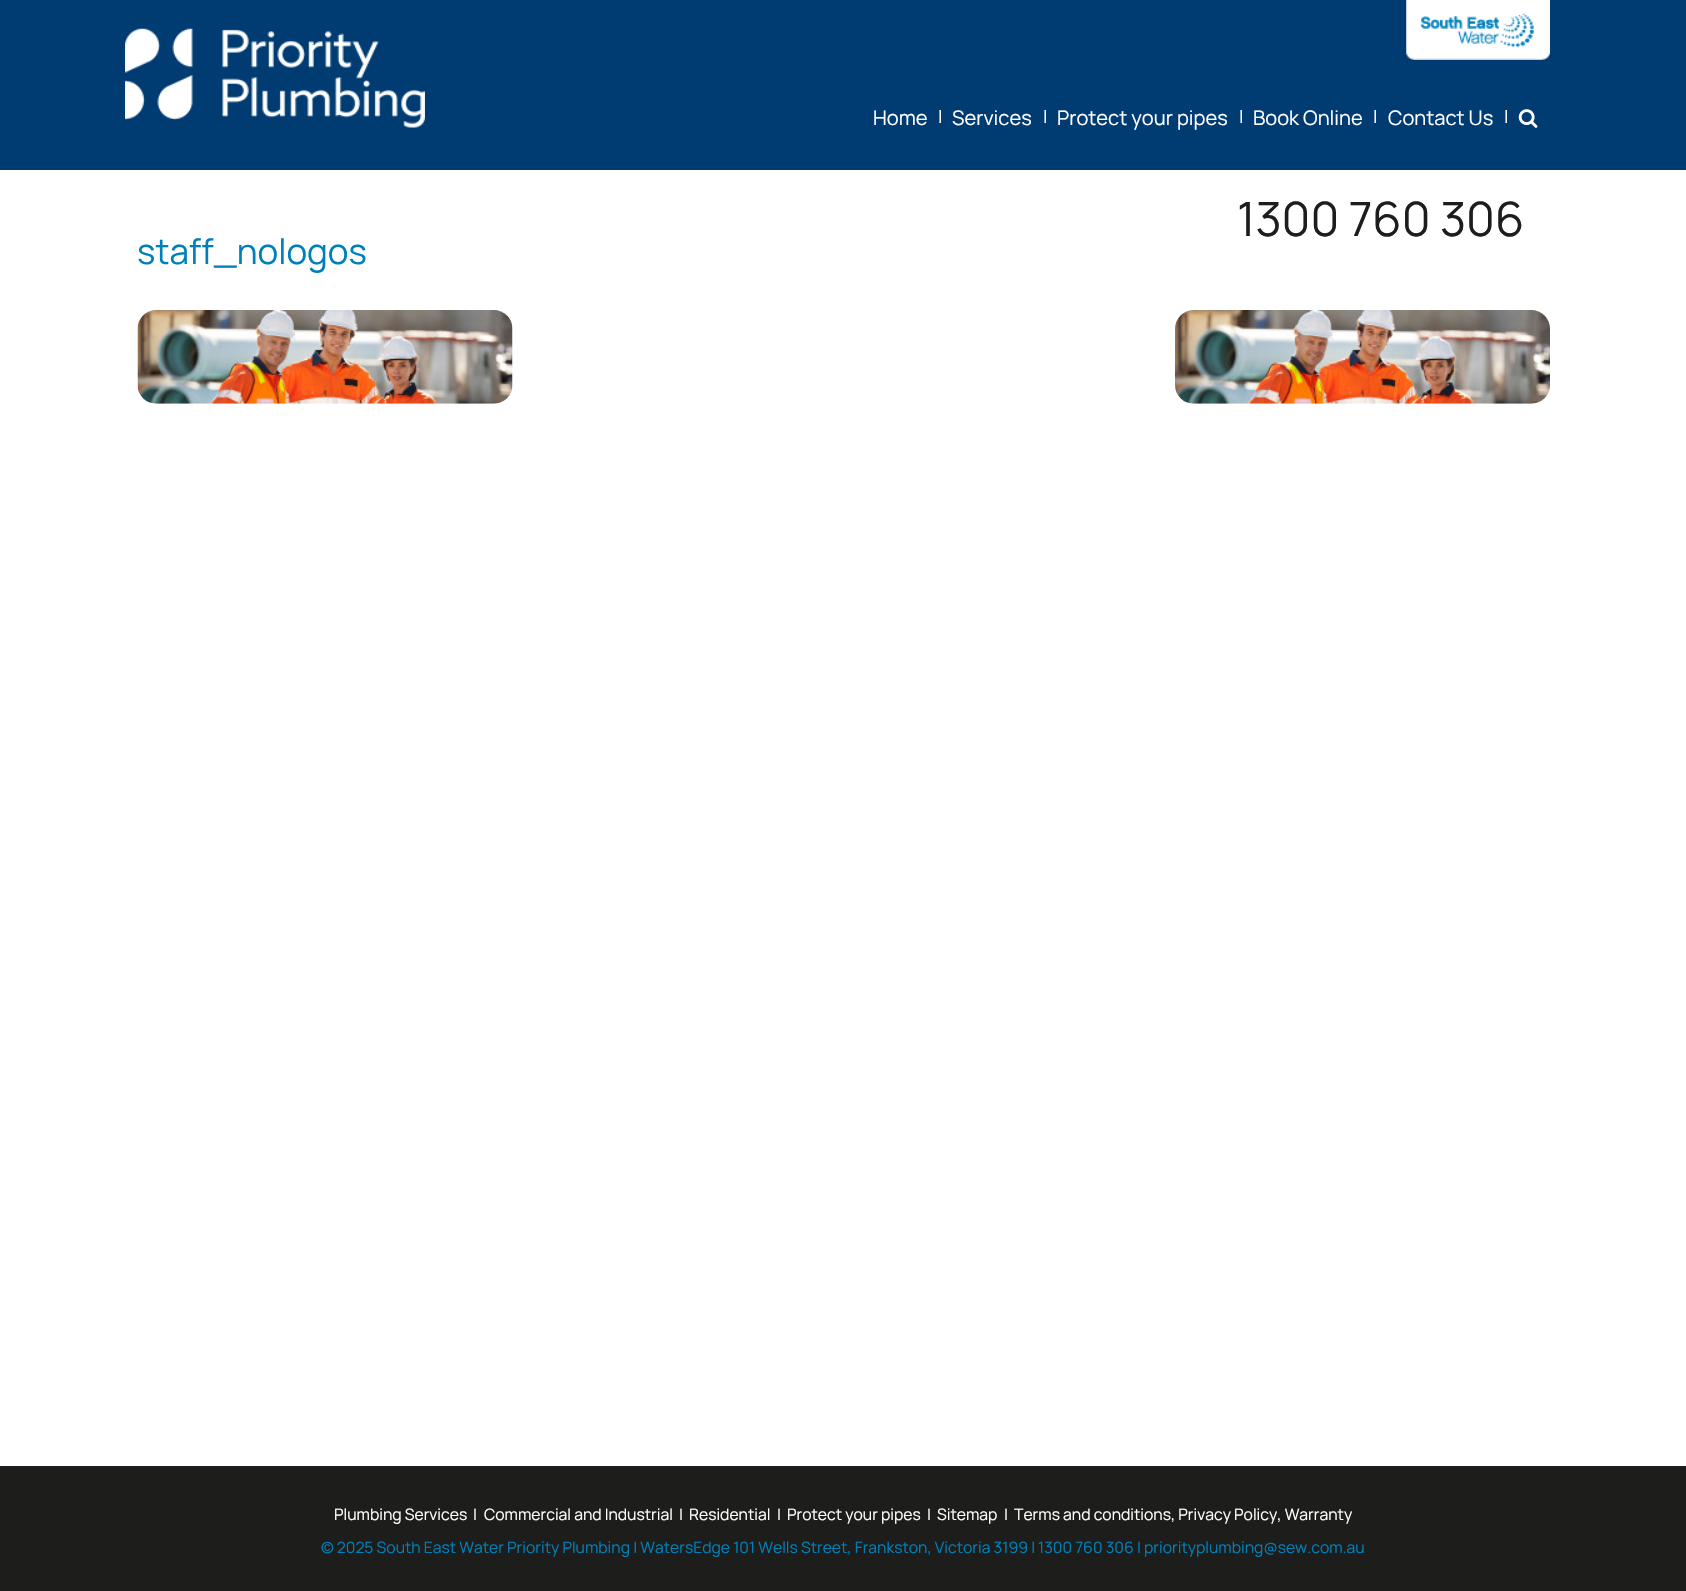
#include "include/core/SkBlurTypes.h"
#include "include/core/SkCanvas.h"
#include "include/core/SkData.h"
#include "include/core/SkFont.h"
#include "include/core/SkFontMgr.h"
#include "include/core/SkImage.h"
#include "include/core/SkMaskFilter.h"
#include "include/core/SkPaint.h"
#include "include/core/SkPathBuilder.h"
#include "include/core/SkTextBlob.h"
#include "include/effects/SkDashPathEffect.h"
#include "include/effects/SkGradientShader.h"
#include "include/utils/SkParsePath.h"

extern sk_sp<SkFontMgr> fontMgr;

void draw(SkCanvas* canvas) {
  SkPaint p;
  p.setAntiAlias(true);
  canvas->clear(SK_ColorWHITE);
  p.setColor(SkColorSetRGB(0, 59, 113));
  canvas->drawRect(SkRect::MakeLTRB(0, 0, 1686, 170), p);
  canvas->drawImageRect(SkImages::DeferredFromEncodedData(SkData::MakeFromFileName("images/1.png")), SkRect::MakeLTRB(125, 28, 425, 128), SkSamplingOptions());
  canvas->drawImageRect(SkImages::DeferredFromEncodedData(SkData::MakeFromFileName("images/2.png")), SkRect::MakeLTRB(1406, 0, 1550, 60), SkSamplingOptions());
  canvas->drawImageRect(SkImages::DeferredFromEncodedData(SkData::MakeFromFileName("images/3.png")), SkRect::MakeLTRB(1518, 109, 1538, 128), SkSamplingOptions());
  canvas->drawImageRect(SkImages::DeferredFromEncodedData(SkData::MakeFromFileName("images/4.png")), SkRect::MakeLTRB(137, 310, 513, 404), SkSamplingOptions());
  canvas->drawImageRect(SkImages::DeferredFromEncodedData(SkData::MakeFromFileName("images/5.png")), SkRect::MakeLTRB(1175, 310, 1550, 404), SkSamplingOptions());
  p.setColor(SkColorSetRGB(29, 29, 27));
  canvas->drawRect(SkRect::MakeLTRB(0, 1466, 1686, 1591), p);
  SkFont font1(fontMgr->matchFamilyStyle("Manrope", SkFontStyle::Normal()), 20.1f);
  font1.setSubpixel(true);
  p.setColor(SK_ColorWHITE);
  canvas->drawString("Home", 873, 125, font1, p);
  SkFont font2(fontMgr->matchFamilyStyle("Manrope", SkFontStyle::Normal()), 18);
  font2.setSubpixel(true);
  canvas->drawString("|", 938, 123, font2, p);
  canvas->drawString("Services", 952, 125, font1, p);
  canvas->drawString("|", 1043, 123, font2, p);
  canvas->drawString("Protect your pipes", 1057, 125, font1, p);
  canvas->drawString("|", 1239, 123, font2, p);
  canvas->drawString("Book Online", 1253, 125, font1, p);
  canvas->drawString("|", 1373, 123, font2, p);
  canvas->drawString("Contact Us", 1388, 125, font1, p);
  canvas->drawString("|", 1504, 123, font2, p);
  SkFont font3(fontMgr->matchFamilyStyle("Manrope", SkFontStyle::Normal()), 47.25f);
  font3.setSubpixel(true);
  p.setColor(SkColorSetRGB(29, 29, 27));
  canvas->drawString("1300 760 306", 1237, 236, font3, p);
  SkFont font4(fontMgr->matchFamilyStyle("Manrope", SkFontStyle::Normal()), 35);
  font4.setSubpixel(true);
  p.setColor(SkColorSetRGB(0, 128, 187));
  canvas->drawString("staff_nologos", 137, 264, font4, p);
  SkFont font5(fontMgr->matchFamilyStyle("Manrope", SkFontStyle::Normal()), 15.75f);
  font5.setSubpixel(true);
  p.setColor(SK_ColorWHITE);
  canvas->drawString("Plumbing Services", 334, 1520, font5, p);
  canvas->drawString("|", 473, 1520, font5, p);
  canvas->drawString("Commercial and Industrial", 484, 1520, font5, p);
  canvas->drawString("|", 679, 1520, font5, p);
  canvas->drawString("Residential", 689, 1520, font5, p);
  canvas->drawString("|", 777, 1520, font5, p);
  canvas->drawString("Protect your pipes", 787, 1520, font5, p);
  canvas->drawString("|", 927, 1520, font5, p);
  canvas->drawString("Sitemap", 937, 1520, font5, p);
  canvas->drawString("|", 1004, 1520, font5, p);
  canvas->drawString("Terms and conditions, Privacy Policy, Warranty", 1014, 1520, font5, p);
  p.setColor(SkColorSetRGB(0, 128, 187));
  canvas->drawString("© 2025 South East Water Priority Plumbing | WatersEdge 101 Wells Street, Frankston, Victoria 3199 |", 321, 1553, font5, p);
  canvas->drawString("1300 760 306 | priorityplumbing@sew.com.au", 1038, 1553, font5, p);
}
